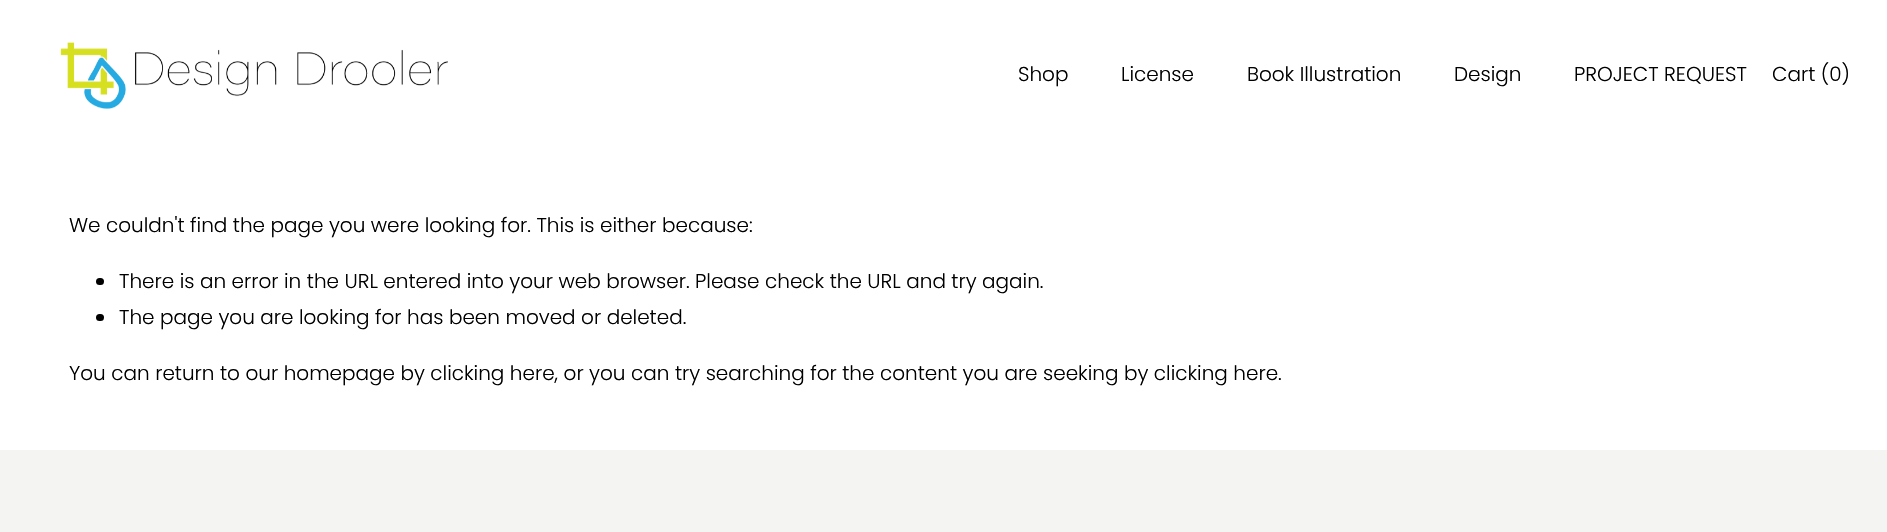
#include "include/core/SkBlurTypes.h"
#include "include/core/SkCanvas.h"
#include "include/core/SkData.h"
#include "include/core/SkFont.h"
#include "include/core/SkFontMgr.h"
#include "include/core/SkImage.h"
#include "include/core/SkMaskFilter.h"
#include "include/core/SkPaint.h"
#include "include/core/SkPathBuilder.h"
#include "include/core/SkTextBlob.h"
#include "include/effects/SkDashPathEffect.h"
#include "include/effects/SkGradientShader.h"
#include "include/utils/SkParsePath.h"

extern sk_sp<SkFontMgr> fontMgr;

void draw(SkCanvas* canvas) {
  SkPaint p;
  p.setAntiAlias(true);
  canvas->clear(SK_ColorWHITE);
  canvas->drawImageRect(SkImages::DeferredFromEncodedData(SkData::MakeFromFileName("images/1.png")), SkRect::MakeLTRB(60, 42, 448, 109), SkSamplingOptions());
  p.setColor(SK_ColorBLACK);
  canvas->drawRoundRect(SkRect::MakeLTRB(96, 278, 104, 285), 3.5f, 3.5f, p);
  canvas->drawRoundRect(SkRect::MakeLTRB(96, 314, 104, 321), 3.5f, 3.5f, p);
  p.setColor(SkColorSetRGB(244, 244, 243));
  canvas->drawRect(SkRect::MakeLTRB(0, 450, 1887, 532), p);
  SkFont font1(fontMgr->matchFamilyStyle("Poppins", SkFontStyle(300, SkFontStyle::kNormal_Width, SkFontStyle::kUpright_Slant)), 20);
  font1.setSubpixel(true);
  p.setColor(SK_ColorBLACK);
  canvas->drawString("Shop", 1018, 81, font1, p);
  canvas->drawString("License", 1121, 81, font1, p);
  canvas->drawString("Book Illustration", 1247, 81, font1, p);
  canvas->drawString("Design", 1454, 81, font1, p);
  canvas->drawString("PROJECT REQUEST", 1574, 81, font1, p);
  canvas->drawString("Cart (0)", 1772, 81, font1, p);
  canvas->drawString("We couldn't find the page you were looking for. This is either because:", 69, 232, font1, p);
  canvas->drawString("There is an error in the URL entered into your web browser. Please check the URL and try again.", 119, 288, font1, p);
  canvas->drawString("The page you are looking for has been moved or deleted.", 119, 324, font1, p);
  canvas->drawString("You can return to our homepage by clicking here, or you can try searching for the content you are seeking by clicking here.", 69, 380, font1, p);
}
